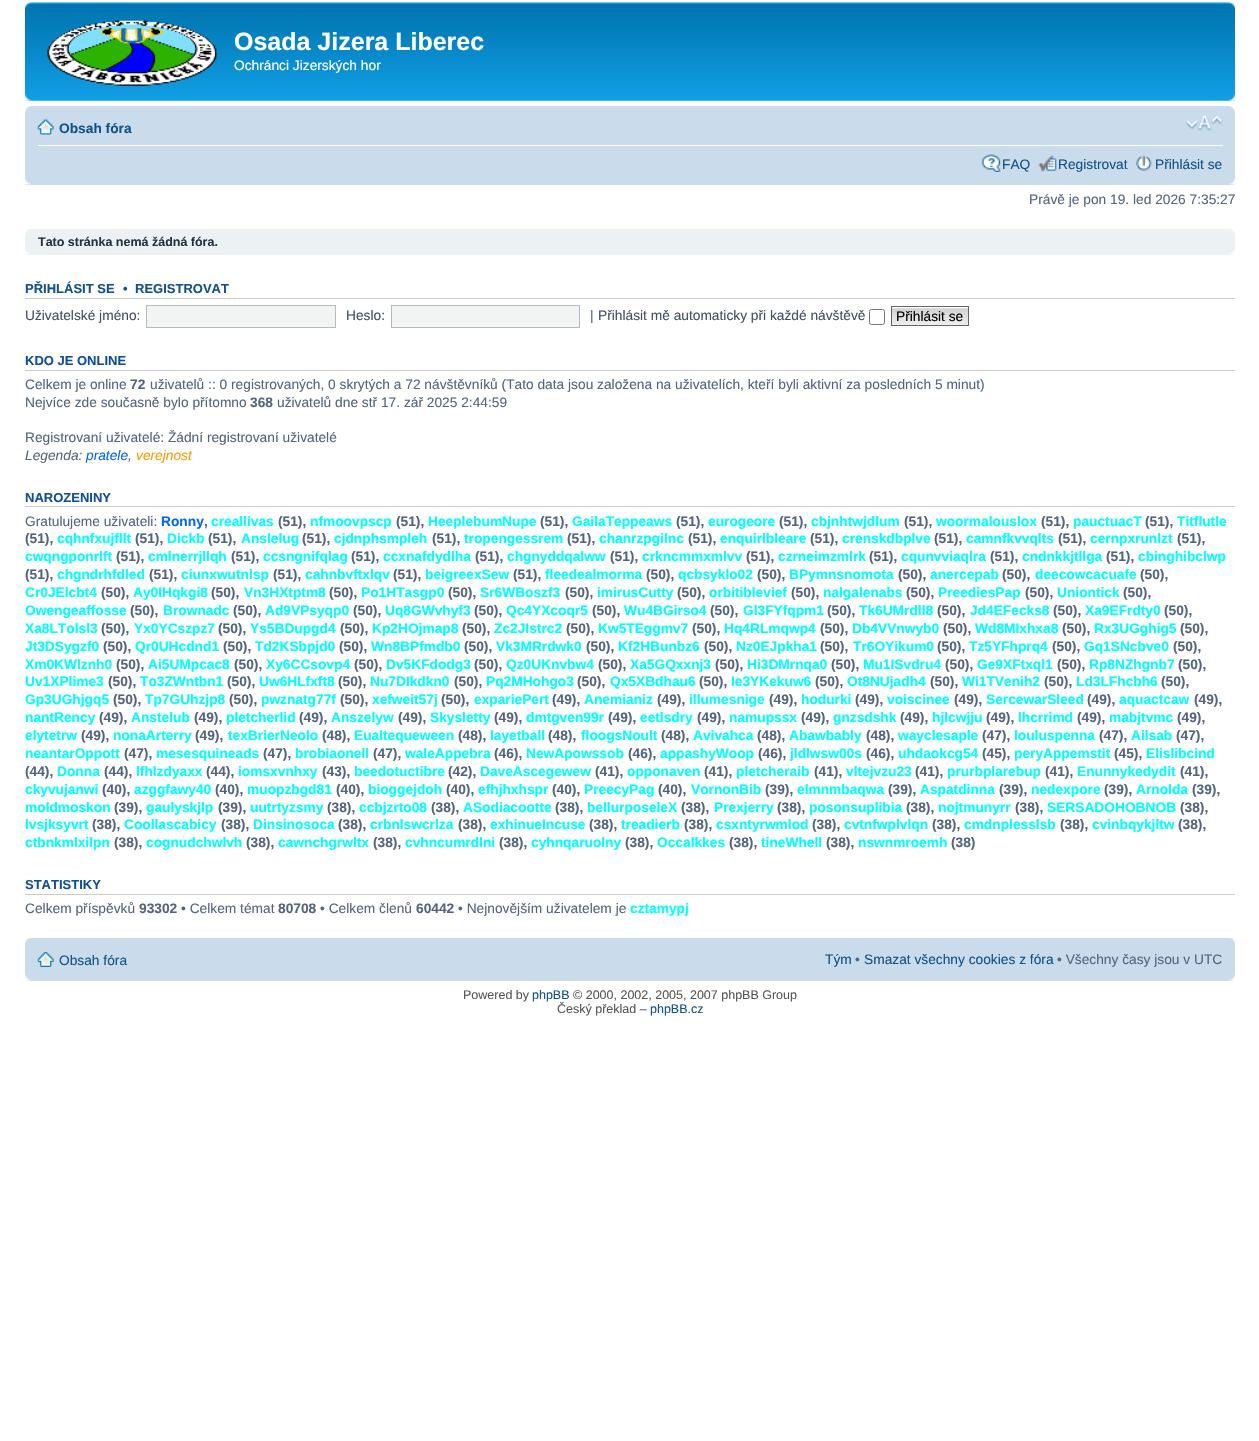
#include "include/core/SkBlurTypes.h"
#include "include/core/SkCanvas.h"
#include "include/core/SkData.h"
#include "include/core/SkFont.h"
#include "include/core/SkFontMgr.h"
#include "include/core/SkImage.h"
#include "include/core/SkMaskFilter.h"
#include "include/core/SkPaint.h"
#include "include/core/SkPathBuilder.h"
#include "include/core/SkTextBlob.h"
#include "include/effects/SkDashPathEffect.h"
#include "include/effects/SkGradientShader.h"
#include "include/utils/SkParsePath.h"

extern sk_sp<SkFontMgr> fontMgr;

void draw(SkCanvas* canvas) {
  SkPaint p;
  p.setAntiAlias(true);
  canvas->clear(SK_ColorWHITE);
  canvas->drawImageRect(SkImages::DeferredFromEncodedData(SkData::MakeFromFileName("images/1.png")), SkRect::MakeLTRB(25, 2, 1235, 101), SkSamplingOptions());
  canvas->drawImageRect(SkImages::DeferredFromEncodedData(SkData::MakeFromFileName("images/2.png")), SkRect::MakeLTRB(25, 2, 32, 9), SkSamplingOptions());
  canvas->drawImageRect(SkImages::DeferredFromEncodedData(SkData::MakeFromFileName("images/3.png")), SkRect::MakeLTRB(1228, 2, 1235, 9), SkSamplingOptions());
  canvas->drawImageRect(SkImages::DeferredFromEncodedData(SkData::MakeFromFileName("images/4.png")), SkRect::MakeLTRB(46, 20, 218, 86), SkSamplingOptions());
  canvas->drawImageRect(SkImages::DeferredFromEncodedData(SkData::MakeFromFileName("images/5.png")), SkRect::MakeLTRB(25, 94, 32, 101), SkSamplingOptions());
  canvas->drawImageRect(SkImages::DeferredFromEncodedData(SkData::MakeFromFileName("images/6.png")), SkRect::MakeLTRB(1228, 94, 1235, 101), SkSamplingOptions());
  p.setColor(SkColorSetRGB(202, 220, 235));
  canvas->drawRect(SkRect::MakeLTRB(25, 106, 1235, 185), p);
  canvas->drawImageRect(SkImages::DeferredFromEncodedData(SkData::MakeFromFileName("images/7.png")), SkRect::MakeLTRB(25, 106, 32, 112), SkSamplingOptions());
  canvas->drawImageRect(SkImages::DeferredFromEncodedData(SkData::MakeFromFileName("images/8.png")), SkRect::MakeLTRB(1229, 106, 1235, 112), SkSamplingOptions());
  p.setColor(SK_ColorWHITE);
  canvas->drawRect(SkRect::MakeLTRB(38, 145, 1223, 146), p);
  canvas->drawImageRect(SkImages::DeferredFromEncodedData(SkData::MakeFromFileName("images/9.png")), SkRect::MakeLTRB(37, 119, 54, 135), SkSamplingOptions());
  canvas->drawImageRect(SkImages::DeferredFromEncodedData(SkData::MakeFromFileName("images/10.png")), SkRect::MakeLTRB(1186, 115, 1223, 131), SkSamplingOptions());
  canvas->drawImageRect(SkImages::DeferredFromEncodedData(SkData::MakeFromFileName("images/11.png")), SkRect::MakeLTRB(981, 154, 1001, 172), SkSamplingOptions());
  canvas->drawImageRect(SkImages::DeferredFromEncodedData(SkData::MakeFromFileName("images/12.png")), SkRect::MakeLTRB(1038, 155, 1057, 172), SkSamplingOptions());
  canvas->drawImageRect(SkImages::DeferredFromEncodedData(SkData::MakeFromFileName("images/13.png")), SkRect::MakeLTRB(1136, 155, 1152, 171), SkSamplingOptions());
  canvas->drawImageRect(SkImages::DeferredFromEncodedData(SkData::MakeFromFileName("images/14.png")), SkRect::MakeLTRB(25, 178, 31, 185), SkSamplingOptions());
  canvas->drawImageRect(SkImages::DeferredFromEncodedData(SkData::MakeFromFileName("images/15.png")), SkRect::MakeLTRB(1229, 178, 1235, 185), SkSamplingOptions());
  p.setColor(SkColorSetRGB(236, 241, 243));
  canvas->drawRect(SkRect::MakeLTRB(25, 229, 1235, 255), p);
  canvas->drawImageRect(SkImages::DeferredFromEncodedData(SkData::MakeFromFileName("images/16.png")), SkRect::MakeLTRB(25, 229, 30, 234), SkSamplingOptions());
  canvas->drawImageRect(SkImages::DeferredFromEncodedData(SkData::MakeFromFileName("images/17.png")), SkRect::MakeLTRB(1230, 229, 1235, 234), SkSamplingOptions());
  canvas->drawImageRect(SkImages::DeferredFromEncodedData(SkData::MakeFromFileName("images/18.png")), SkRect::MakeLTRB(25, 249, 30, 255), SkSamplingOptions());
  canvas->drawImageRect(SkImages::DeferredFromEncodedData(SkData::MakeFromFileName("images/19.png")), SkRect::MakeLTRB(1230, 249, 1235, 255), SkSamplingOptions());
  p.setColor(SkColorSetRGB(204, 204, 204));
  canvas->drawRect(SkRect::MakeLTRB(25, 298, 1235, 299), p);
  p.setColor(SkColorSetRGB(242, 243, 243));
  canvas->drawRect(SkRect::MakeLTRB(146.5f, 305.5f, 335.5f, 327.5f), p);
  p.setStyle(SkPaint::kStroke_Style);
  p.setStrokeWidth(1);
  p.setColor(SkColorSetRGB(180, 186, 192));
  canvas->drawRect(SkRect::MakeLTRB(146.5f, 305.5f, 335.5f, 327.5f), p);
  p.setStyle(SkPaint::kFill_Style);
  p.setColor(SkColorSetRGB(242, 243, 243));
  canvas->drawRect(SkRect::MakeLTRB(391.5f, 305.5f, 579.5f, 327.5f), p);
  p.setStyle(SkPaint::kStroke_Style);
  p.setColor(SkColorSetRGB(180, 186, 192));
  canvas->drawRect(SkRect::MakeLTRB(391.5f, 305.5f, 579.5f, 327.5f), p);
  p.setColor(SkColorSetRGB(118, 118, 118));
  canvas->drawRoundRect(SkRect::MakeLTRB(869.5f, 309.5f, 884.5f, 324.5f), 2, 2, p);
  canvas->drawImageRect(SkImages::DeferredFromEncodedData(SkData::MakeFromFileName("images/20.png")), SkRect::MakeLTRB(892, 307, 968, 325), SkSamplingOptions());
  p.setColor(SkColorSetRGB(102, 102, 102));
  canvas->drawRect(SkRect::MakeLTRB(891.5f, 306.5f, 968.5f, 325.5f), p);
  p.setStyle(SkPaint::kFill_Style);
  p.setColor(SkColorSetRGB(204, 204, 204));
  canvas->drawRect(SkRect::MakeLTRB(25, 370, 1235, 371), p);
  canvas->drawRect(SkRect::MakeLTRB(25, 506, 1235, 507), p);
  canvas->drawRect(SkRect::MakeLTRB(25, 894, 1235, 895), p);
  p.setColor(SkColorSetRGB(202, 220, 235));
  canvas->drawRect(SkRect::MakeLTRB(25, 938, 1235, 981), p);
  canvas->drawImageRect(SkImages::DeferredFromEncodedData(SkData::MakeFromFileName("images/21.png")), SkRect::MakeLTRB(25, 938, 31, 943), SkSamplingOptions());
  canvas->drawImageRect(SkImages::DeferredFromEncodedData(SkData::MakeFromFileName("images/22.png")), SkRect::MakeLTRB(1229, 938, 1235, 943), SkSamplingOptions());
  canvas->drawImageRect(SkImages::DeferredFromEncodedData(SkData::MakeFromFileName("images/23.png")), SkRect::MakeLTRB(37, 952, 54, 967), SkSamplingOptions());
  canvas->drawImageRect(SkImages::DeferredFromEncodedData(SkData::MakeFromFileName("images/24.png")), SkRect::MakeLTRB(25, 974, 31, 981), SkSamplingOptions());
  canvas->drawImageRect(SkImages::DeferredFromEncodedData(SkData::MakeFromFileName("images/25.png")), SkRect::MakeLTRB(1229, 974, 1235, 981), SkSamplingOptions());
  SkFont font1(fontMgr->matchFamilyStyle("Liberation Sans", SkFontStyle::Bold()), 25);
  font1.setSubpixel(true);
  p.setColor(SK_ColorWHITE);
  canvas->drawString("Osada Jizera Liberec", 234, 50, font1, p);
  SkFont font2(fontMgr->matchFamilyStyle("Liberation Sans", SkFontStyle::Normal()), 13.75f);
  font2.setSubpixel(true);
  canvas->drawString("Ochránci Jizerských hor", 234, 70, font2, p);
  SkFont font3(fontMgr->matchFamilyStyle("Liberation Sans", SkFontStyle::Bold()), 13.75f);
  font3.setSubpixel(true);
  p.setColor(SkColorSetRGB(16, 82, 137));
  canvas->drawString("Obsah fóra", 59, 133, font3, p);
  canvas->drawString("FAQ", 1002, 169, font2, p);
  canvas->drawString("Registrovat", 1058, 169, font2, p);
  canvas->drawString("Přihlásit se", 1155, 169, font2, p);
  p.setColor(SkColorSetRGB(83, 100, 130));
  canvas->drawString("Právě je pon 19. led 2026 7:35:27", 1029, 204, font2, p);
  SkFont font4(fontMgr->matchFamilyStyle("Liberation Sans", SkFontStyle::Bold()), 12.5f);
  font4.setSubpixel(true);
  p.setColor(SkColorSetRGB(40, 49, 63));
  canvas->drawString("Tato stránka nemá žádná fóra.", 38, 246, font4, p);
  SkFont font5(fontMgr->matchFamilyStyle("Liberation Sans", SkFontStyle::Bold()), 13);
  font5.setSubpixel(true);
  p.setColor(SkColorSetRGB(16, 82, 137));
  canvas->drawString("PŘIHLÁSIT SE", 25, 293, font5, p);
  p.setColor(SkColorSetRGB(17, 80, 152));
  canvas->drawString("•", 123, 293, font5, p);
  p.setColor(SkColorSetRGB(16, 82, 137));
  canvas->drawString("REGISTROVAT", 135, 293, font5, p);
  p.setColor(SkColorSetRGB(66, 80, 103));
  canvas->drawString("Uživatelské jméno:", 25, 320, font2, p);
  canvas->drawString("Heslo:", 346, 320, font2, p);
  p.setColor(SkColorSetRGB(83, 100, 130));
  canvas->drawString("|", 590, 320, font2, p);
  p.setColor(SkColorSetRGB(66, 80, 103));
  canvas->drawString("Přihlásit mě automaticky při každé návštěvě", 598, 320, font2, p);
  p.setColor(SK_ColorBLACK);
  canvas->drawString("Přihlásit se", 896, 321, font2, p);
  p.setColor(SkColorSetRGB(17, 80, 152));
  canvas->drawString("KDO JE ONLINE", 25, 365, font5, p);
  p.setColor(SkColorSetRGB(83, 100, 130));
  canvas->drawString("Celkem je online", 25, 389, font2, p);
  canvas->drawString("72", 130, 389, font3, p);
  canvas->drawString("uživatelů :: 0 registrovaných, 0 skrytých a 72 návštěvníků (Tato data jsou založena na uživatelích, kteří byli aktivní za posledních 5 minut)", 150, 389, font2, p);
  canvas->drawString("Nejvíce zde současně bylo přítomno", 25, 407, font2, p);
  canvas->drawString("368", 250, 407, font3, p);
  canvas->drawString("uživatelů dne stř 17. zář 2025 2:44:59", 277, 407, font2, p);
  canvas->drawString("Registrovaní uživatelé: Žádní registrovaní uživatelé", 25, 442, font2, p);
  SkFont font6(fontMgr->matchFamilyStyle("Liberation Sans", SkFontStyle::Italic()), 13.75f);
  font6.setSubpixel(true);
  canvas->drawString("Legenda:", 25, 460, font6, p);
  p.setColor(SkColorSetRGB(0, 102, 255));
  canvas->drawString("pratele", 86, 460, font6, p);
  p.setColor(SkColorSetRGB(83, 100, 130));
  canvas->drawString(",", 128, 460, font6, p);
  p.setColor(SkColorSetRGB(255, 153, 0));
  canvas->drawString("verejnost", 136, 460, font6, p);
  p.setColor(SkColorSetRGB(17, 80, 152));
  canvas->drawString("NAROZENINY", 25, 502, font5, p);
  p.setColor(SkColorSetRGB(83, 100, 130));
  canvas->drawString("Gratulujeme uživateli:", 25, 526, font2, p);
  p.setColor(SkColorSetRGB(0, 102, 255));
  canvas->drawString("Ronny", 161, 526, font3, p);
  p.setColor(SkColorSetRGB(83, 100, 130));
  canvas->drawString(",", 204, 526, font3, p);
  p.setColor(SkColorSetRGB(0, 255, 255));
  canvas->drawString("creallivas", 211, 526, font3, p);
  p.setColor(SkColorSetRGB(83, 100, 130));
  canvas->drawString("(51),", 278, 526, font3, p);
  p.setColor(SkColorSetRGB(0, 255, 255));
  canvas->drawString("nfmoovpscp", 310, 526, font3, p);
  p.setColor(SkColorSetRGB(83, 100, 130));
  canvas->drawString("(51),", 396, 526, font3, p);
  p.setColor(SkColorSetRGB(0, 255, 255));
  canvas->drawString("HeeplebumNupe", 428, 526, font3, p);
  p.setColor(SkColorSetRGB(83, 100, 130));
  canvas->drawString("(51),", 540, 526, font3, p);
  p.setColor(SkColorSetRGB(0, 255, 255));
  canvas->drawString("GailaTeppeaws", 572, 526, font3, p);
  p.setColor(SkColorSetRGB(83, 100, 130));
  canvas->drawString("(51),", 676, 526, font3, p);
  p.setColor(SkColorSetRGB(0, 255, 255));
  canvas->drawString("eurogeore", 708, 526, font3, p);
  p.setColor(SkColorSetRGB(83, 100, 130));
  canvas->drawString("(51),", 779, 526, font3, p);
  p.setColor(SkColorSetRGB(0, 255, 255));
  canvas->drawString("cbjnhtwjdlum", 811, 526, font3, p);
  p.setColor(SkColorSetRGB(83, 100, 130));
  canvas->drawString("(51),", 904, 526, font3, p);
  p.setColor(SkColorSetRGB(0, 255, 255));
  canvas->drawString("woormalouslox", 936, 526, font3, p);
  p.setColor(SkColorSetRGB(83, 100, 130));
  canvas->drawString("(51),", 1041, 526, font3, p);
  p.setColor(SkColorSetRGB(0, 255, 255));
  canvas->drawString("pauctuacT", 1073, 526, font3, p);
  p.setColor(SkColorSetRGB(83, 100, 130));
  canvas->drawString("(51),", 1145, 526, font3, p);
  p.setColor(SkColorSetRGB(0, 255, 255));
  canvas->drawString("Titflutle", 1177, 526, font3, p);
  p.setColor(SkColorSetRGB(83, 100, 130));
  canvas->drawString("(51),", 25, 543, font3, p);
  p.setColor(SkColorSetRGB(0, 255, 255));
  canvas->drawString("cqhnfxujfllt", 57, 543, font3, p);
  p.setColor(SkColorSetRGB(83, 100, 130));
  canvas->drawString("(51),", 135, 543, font3, p);
  p.setColor(SkColorSetRGB(0, 255, 255));
  canvas->drawString("Dickb", 167, 543, font3, p);
  p.setColor(SkColorSetRGB(83, 100, 130));
  canvas->drawString("(51),", 208, 543, font3, p);
  p.setColor(SkColorSetRGB(0, 255, 255));
  canvas->drawString("Anslelug", 241, 543, font3, p);
  p.setColor(SkColorSetRGB(83, 100, 130));
  canvas->drawString("(51),", 302, 543, font3, p);
  p.setColor(SkColorSetRGB(0, 255, 255));
  canvas->drawString("cjdnphsmpleh", 334, 543, font3, p);
  p.setColor(SkColorSetRGB(83, 100, 130));
  canvas->drawString("(51),", 432, 543, font3, p);
  p.setColor(SkColorSetRGB(0, 255, 255));
  canvas->drawString("tropengessrem", 464, 543, font3, p);
  p.setColor(SkColorSetRGB(83, 100, 130));
  canvas->drawString("(51),", 567, 543, font3, p);
  p.setColor(SkColorSetRGB(0, 255, 255));
  canvas->drawString("chanrzpgilnc", 599, 543, font3, p);
  p.setColor(SkColorSetRGB(83, 100, 130));
  canvas->drawString("(51),", 688, 543, font3, p);
  p.setColor(SkColorSetRGB(0, 255, 255));
  canvas->drawString("enquirlbleare", 720, 543, font3, p);
  p.setColor(SkColorSetRGB(83, 100, 130));
  canvas->drawString("(51),", 810, 543, font3, p);
  p.setColor(SkColorSetRGB(0, 255, 255));
  canvas->drawString("crenskdbplve", 842, 543, font3, p);
  p.setColor(SkColorSetRGB(83, 100, 130));
  canvas->drawString("(51),", 934, 543, font3, p);
  p.setColor(SkColorSetRGB(0, 255, 255));
  canvas->drawString("camnfkvvqlts", 966, 543, font3, p);
  p.setColor(SkColorSetRGB(83, 100, 130));
  canvas->drawString("(51),", 1058, 543, font3, p);
  p.setColor(SkColorSetRGB(0, 255, 255));
  canvas->drawString("cernpxrunlzt", 1090, 543, font3, p);
  p.setColor(SkColorSetRGB(83, 100, 130));
  canvas->drawString("(51),", 1177, 543, font3, p);
  p.setColor(SkColorSetRGB(0, 255, 255));
  canvas->drawString("cwqngponrlft", 25, 561, font3, p);
  p.setColor(SkColorSetRGB(83, 100, 130));
  canvas->drawString("(51),", 116, 561, font3, p);
  p.setColor(SkColorSetRGB(0, 255, 255));
  canvas->drawString("cmlnerrjllqh", 148, 561, font3, p);
  p.setColor(SkColorSetRGB(83, 100, 130));
  canvas->drawString("(51),", 231, 561, font3, p);
  p.setColor(SkColorSetRGB(0, 255, 255));
  canvas->drawString("ccsngnifqlag", 263, 561, font3, p);
  p.setColor(SkColorSetRGB(83, 100, 130));
  canvas->drawString("(51),", 351, 561, font3, p);
  p.setColor(SkColorSetRGB(0, 255, 255));
  canvas->drawString("ccxnafdydlha", 383, 561, font3, p);
  p.setColor(SkColorSetRGB(83, 100, 130));
  canvas->drawString("(51),", 475, 561, font3, p);
  p.setColor(SkColorSetRGB(0, 255, 255));
  canvas->drawString("chgnyddqalww", 507, 561, font3, p);
  p.setColor(SkColorSetRGB(83, 100, 130));
  canvas->drawString("(51),", 610, 561, font3, p);
  p.setColor(SkColorSetRGB(0, 255, 255));
  canvas->drawString("crkncmmxmlvv", 642, 561, font3, p);
  p.setColor(SkColorSetRGB(83, 100, 130));
  canvas->drawString("(51),", 746, 561, font3, p);
  p.setColor(SkColorSetRGB(0, 255, 255));
  canvas->drawString("czrneimzmlrk", 778, 561, font3, p);
  p.setColor(SkColorSetRGB(83, 100, 130));
  canvas->drawString("(51),", 869, 561, font3, p);
  p.setColor(SkColorSetRGB(0, 255, 255));
  canvas->drawString("cqunvviaqlra", 901, 561, font3, p);
  p.setColor(SkColorSetRGB(83, 100, 130));
  canvas->drawString("(51),", 990, 561, font3, p);
  p.setColor(SkColorSetRGB(0, 255, 255));
  canvas->drawString("cndnkkjtllga", 1022, 561, font3, p);
  p.setColor(SkColorSetRGB(83, 100, 130));
  canvas->drawString("(51),", 1106, 561, font3, p);
  p.setColor(SkColorSetRGB(0, 255, 255));
  canvas->drawString("cbinghibclwp", 1138, 561, font3, p);
  p.setColor(SkColorSetRGB(83, 100, 130));
  canvas->drawString("(51),", 25, 579, font3, p);
  p.setColor(SkColorSetRGB(0, 255, 255));
  canvas->drawString("chgndrhfdled", 57, 579, font3, p);
  p.setColor(SkColorSetRGB(83, 100, 130));
  canvas->drawString("(51),", 149, 579, font3, p);
  p.setColor(SkColorSetRGB(0, 255, 255));
  canvas->drawString("ciunxwutnlsp", 181, 579, font3, p);
  p.setColor(SkColorSetRGB(83, 100, 130));
  canvas->drawString("(51),", 273, 579, font3, p);
  p.setColor(SkColorSetRGB(0, 255, 255));
  canvas->drawString("cahnbvftxlqv", 305, 579, font3, p);
  p.setColor(SkColorSetRGB(83, 100, 130));
  canvas->drawString("(51),", 393, 579, font3, p);
  p.setColor(SkColorSetRGB(0, 255, 255));
  canvas->drawString("beigreexSew", 425, 579, font3, p);
  p.setColor(SkColorSetRGB(83, 100, 130));
  canvas->drawString("(51),", 513, 579, font3, p);
  p.setColor(SkColorSetRGB(0, 255, 255));
  canvas->drawString("fleedealmorma", 545, 579, font3, p);
  p.setColor(SkColorSetRGB(83, 100, 130));
  canvas->drawString("(50),", 646, 579, font3, p);
  p.setColor(SkColorSetRGB(0, 255, 255));
  canvas->drawString("qcbsyklo02", 678, 579, font3, p);
  p.setColor(SkColorSetRGB(83, 100, 130));
  canvas->drawString("(50),", 757, 579, font3, p);
  p.setColor(SkColorSetRGB(0, 255, 255));
  canvas->drawString("BPymnsnomota", 789, 579, font3, p);
  p.setColor(SkColorSetRGB(83, 100, 130));
  canvas->drawString("(50),", 898, 579, font3, p);
  p.setColor(SkColorSetRGB(0, 255, 255));
  canvas->drawString("anercepab", 930, 579, font3, p);
  p.setColor(SkColorSetRGB(83, 100, 130));
  canvas->drawString("(50),", 1002, 579, font3, p);
  p.setColor(SkColorSetRGB(0, 255, 255));
  canvas->drawString("deecowcacuafe", 1035, 579, font3, p);
  p.setColor(SkColorSetRGB(83, 100, 130));
  canvas->drawString("(50),", 1140, 579, font3, p);
  p.setColor(SkColorSetRGB(0, 255, 255));
  canvas->drawString("Cr0JElcbt4", 25, 597, font3, p);
  p.setColor(SkColorSetRGB(83, 100, 130));
  canvas->drawString("(50),", 101, 597, font3, p);
  p.setColor(SkColorSetRGB(0, 255, 255));
  canvas->drawString("Ay0IHqkgi8", 133, 597, font3, p);
  p.setColor(SkColorSetRGB(83, 100, 130));
  canvas->drawString("(50),", 211, 597, font3, p);
  p.setColor(SkColorSetRGB(0, 255, 255));
  canvas->drawString("Vn3HXtptm8", 244, 597, font3, p);
  p.setColor(SkColorSetRGB(83, 100, 130));
  canvas->drawString("(50),", 329, 597, font3, p);
  p.setColor(SkColorSetRGB(0, 255, 255));
  canvas->drawString("Po1HTasgp0", 361, 597, font3, p);
  p.setColor(SkColorSetRGB(83, 100, 130));
  canvas->drawString("(50),", 448, 597, font3, p);
  p.setColor(SkColorSetRGB(0, 255, 255));
  canvas->drawString("Sr6WBoszf3", 480, 597, font3, p);
  p.setColor(SkColorSetRGB(83, 100, 130));
  canvas->drawString("(50),", 565, 597, font3, p);
  p.setColor(SkColorSetRGB(0, 255, 255));
  canvas->drawString("imirusCutty", 597, 597, font3, p);
  p.setColor(SkColorSetRGB(83, 100, 130));
  canvas->drawString("(50),", 677, 597, font3, p);
  p.setColor(SkColorSetRGB(0, 255, 255));
  canvas->drawString("orbitiblevief", 709, 597, font3, p);
  p.setColor(SkColorSetRGB(83, 100, 130));
  canvas->drawString("(50),", 791, 597, font3, p);
  p.setColor(SkColorSetRGB(0, 255, 255));
  canvas->drawString("nalgalenabs", 823, 597, font3, p);
  p.setColor(SkColorSetRGB(83, 100, 130));
  canvas->drawString("(50),", 906, 597, font3, p);
  p.setColor(SkColorSetRGB(0, 255, 255));
  canvas->drawString("PreediesPap", 938, 597, font3, p);
  p.setColor(SkColorSetRGB(83, 100, 130));
  canvas->drawString("(50),", 1025, 597, font3, p);
  p.setColor(SkColorSetRGB(0, 255, 255));
  canvas->drawString("Uniontick", 1057, 597, font3, p);
  p.setColor(SkColorSetRGB(83, 100, 130));
  canvas->drawString("(50),", 1123, 597, font3, p);
  p.setColor(SkColorSetRGB(0, 255, 255));
  canvas->drawString("Owengeaffosse", 25, 615, font3, p);
  p.setColor(SkColorSetRGB(83, 100, 130));
  canvas->drawString("(50),", 130, 615, font3, p);
  p.setColor(SkColorSetRGB(0, 255, 255));
  canvas->drawString("Brownadc", 163, 615, font3, p);
  p.setColor(SkColorSetRGB(83, 100, 130));
  canvas->drawString("(50),", 233, 615, font3, p);
  p.setColor(SkColorSetRGB(0, 255, 255));
  canvas->drawString("Ad9VPsyqp0", 265, 615, font3, p);
  p.setColor(SkColorSetRGB(83, 100, 130));
  canvas->drawString("(50),", 353, 615, font3, p);
  p.setColor(SkColorSetRGB(0, 255, 255));
  canvas->drawString("Uq8GWvhyf3", 385, 615, font3, p);
  p.setColor(SkColorSetRGB(83, 100, 130));
  canvas->drawString("(50),", 474, 615, font3, p);
  p.setColor(SkColorSetRGB(0, 255, 255));
  canvas->drawString("Qc4YXcoqr5", 506, 615, font3, p);
  p.setColor(SkColorSetRGB(83, 100, 130));
  canvas->drawString("(50),", 592, 615, font3, p);
  p.setColor(SkColorSetRGB(0, 255, 255));
  canvas->drawString("Wu4BGirso4", 624, 615, font3, p);
  p.setColor(SkColorSetRGB(83, 100, 130));
  canvas->drawString("(50),", 710, 615, font3, p);
  p.setColor(SkColorSetRGB(0, 255, 255));
  canvas->drawString("Gl3FYfqpm1", 743, 615, font3, p);
  p.setColor(SkColorSetRGB(83, 100, 130));
  canvas->drawString("(50),", 827, 615, font3, p);
  p.setColor(SkColorSetRGB(0, 255, 255));
  canvas->drawString("Tk6UMrdll8", 859, 615, font3, p);
  p.setColor(SkColorSetRGB(83, 100, 130));
  canvas->drawString("(50),", 937, 615, font3, p);
  p.setColor(SkColorSetRGB(0, 255, 255));
  canvas->drawString("Jd4EFecks8", 970, 615, font3, p);
  p.setColor(SkColorSetRGB(83, 100, 130));
  canvas->drawString("(50),", 1053, 615, font3, p);
  p.setColor(SkColorSetRGB(0, 255, 255));
  canvas->drawString("Xa9EFrdty0", 1085, 615, font3, p);
  p.setColor(SkColorSetRGB(83, 100, 130));
  canvas->drawString("(50),", 1164, 615, font3, p);
  p.setColor(SkColorSetRGB(0, 255, 255));
  canvas->drawString("Xa8LTolsl3", 25, 633, font3, p);
  p.setColor(SkColorSetRGB(83, 100, 130));
  canvas->drawString("(50),", 101, 633, font3, p);
  p.setColor(SkColorSetRGB(0, 255, 255));
  canvas->drawString("Yx0YCszpz7", 134, 633, font3, p);
  p.setColor(SkColorSetRGB(83, 100, 130));
  canvas->drawString("(50),", 218, 633, font3, p);
  p.setColor(SkColorSetRGB(0, 255, 255));
  canvas->drawString("Ys5BDupgd4", 250, 633, font3, p);
  p.setColor(SkColorSetRGB(83, 100, 130));
  canvas->drawString("(50),", 340, 633, font3, p);
  p.setColor(SkColorSetRGB(0, 255, 255));
  canvas->drawString("Kp2HOjmap8", 372, 633, font3, p);
  p.setColor(SkColorSetRGB(83, 100, 130));
  canvas->drawString("(50),", 462, 633, font3, p);
  p.setColor(SkColorSetRGB(0, 255, 255));
  canvas->drawString("Zc2JIstrc2", 494, 633, font3, p);
  p.setColor(SkColorSetRGB(83, 100, 130));
  canvas->drawString("(50),", 566, 633, font3, p);
  p.setColor(SkColorSetRGB(0, 255, 255));
  canvas->drawString("Kw5TEggmv7", 598, 633, font3, p);
  p.setColor(SkColorSetRGB(83, 100, 130));
  canvas->drawString("(50),", 692, 633, font3, p);
  p.setColor(SkColorSetRGB(0, 255, 255));
  canvas->drawString("Hq4RLmqwp4", 724, 633, font3, p);
  p.setColor(SkColorSetRGB(83, 100, 130));
  canvas->drawString("(50),", 820, 633, font3, p);
  p.setColor(SkColorSetRGB(0, 255, 255));
  canvas->drawString("Db4VVnwyb0", 852, 633, font3, p);
  p.setColor(SkColorSetRGB(83, 100, 130));
  canvas->drawString("(50),", 943, 633, font3, p);
  p.setColor(SkColorSetRGB(0, 255, 255));
  canvas->drawString("Wd8MIxhxa8", 975, 633, font3, p);
  p.setColor(SkColorSetRGB(83, 100, 130));
  canvas->drawString("(50),", 1062, 633, font3, p);
  p.setColor(SkColorSetRGB(0, 255, 255));
  canvas->drawString("Rx3UGghig5", 1094, 633, font3, p);
  p.setColor(SkColorSetRGB(83, 100, 130));
  canvas->drawString("(50),", 1180, 633, font3, p);
  p.setColor(SkColorSetRGB(0, 255, 255));
  canvas->drawString("Jt3DSygzf0", 25, 651, font3, p);
  p.setColor(SkColorSetRGB(83, 100, 130));
  canvas->drawString("(50),", 103, 651, font3, p);
  p.setColor(SkColorSetRGB(0, 255, 255));
  canvas->drawString("Qr0UHcdnd1", 135, 651, font3, p);
  p.setColor(SkColorSetRGB(83, 100, 130));
  canvas->drawString("(50),", 223, 651, font3, p);
  p.setColor(SkColorSetRGB(0, 255, 255));
  canvas->drawString("Td2KSbpjd0", 255, 651, font3, p);
  p.setColor(SkColorSetRGB(83, 100, 130));
  canvas->drawString("(50),", 339, 651, font3, p);
  p.setColor(SkColorSetRGB(0, 255, 255));
  canvas->drawString("Wn8BPfmdb0", 371, 651, font3, p);
  p.setColor(SkColorSetRGB(83, 100, 130));
  canvas->drawString("(50),", 464, 651, font3, p);
  p.setColor(SkColorSetRGB(0, 255, 255));
  canvas->drawString("Vk3MRrdwk0", 496, 651, font3, p);
  p.setColor(SkColorSetRGB(83, 100, 130));
  canvas->drawString("(50),", 586, 651, font3, p);
  p.setColor(SkColorSetRGB(0, 255, 255));
  canvas->drawString("Kf2HBunbz6", 618, 651, font3, p);
  p.setColor(SkColorSetRGB(83, 100, 130));
  canvas->drawString("(50),", 704, 651, font3, p);
  p.setColor(SkColorSetRGB(0, 255, 255));
  canvas->drawString("Nz0EJpkha1", 736, 651, font3, p);
  p.setColor(SkColorSetRGB(83, 100, 130));
  canvas->drawString("(50),", 820, 651, font3, p);
  p.setColor(SkColorSetRGB(0, 255, 255));
  canvas->drawString("Tr6OYikum0", 853, 651, font3, p);
  p.setColor(SkColorSetRGB(83, 100, 130));
  canvas->drawString("(50),", 937, 651, font3, p);
  p.setColor(SkColorSetRGB(0, 255, 255));
  canvas->drawString("Tz5YFhprq4", 969, 651, font3, p);
  p.setColor(SkColorSetRGB(83, 100, 130));
  canvas->drawString("(50),", 1052, 651, font3, p);
  p.setColor(SkColorSetRGB(0, 255, 255));
  canvas->drawString("Gq1SNcbve0", 1084, 651, font3, p);
  p.setColor(SkColorSetRGB(83, 100, 130));
  canvas->drawString("(50),", 1173, 651, font3, p);
  p.setColor(SkColorSetRGB(0, 255, 255));
  canvas->drawString("Xm0KWlznh0", 25, 669, font3, p);
  p.setColor(SkColorSetRGB(83, 100, 130));
  canvas->drawString("(50),", 116, 669, font3, p);
  p.setColor(SkColorSetRGB(0, 255, 255));
  canvas->drawString("Ai5UMpcac8", 148, 669, font3, p);
  p.setColor(SkColorSetRGB(83, 100, 130));
  canvas->drawString("(50),", 234, 669, font3, p);
  p.setColor(SkColorSetRGB(0, 255, 255));
  canvas->drawString("Xy6CCsovp4", 266, 669, font3, p);
  p.setColor(SkColorSetRGB(83, 100, 130));
  canvas->drawString("(50),", 354, 669, font3, p);
  p.setColor(SkColorSetRGB(0, 255, 255));
  canvas->drawString("Dv5KFdodg3", 386, 669, font3, p);
  p.setColor(SkColorSetRGB(83, 100, 130));
  canvas->drawString("(50),", 474, 669, font3, p);
  p.setColor(SkColorSetRGB(0, 255, 255));
  canvas->drawString("Qz0UKnvbw4", 506, 669, font3, p);
  p.setColor(SkColorSetRGB(83, 100, 130));
  canvas->drawString("(50),", 598, 669, font3, p);
  p.setColor(SkColorSetRGB(0, 255, 255));
  canvas->drawString("Xa5GQxxnj3", 630, 669, font3, p);
  p.setColor(SkColorSetRGB(83, 100, 130));
  canvas->drawString("(50),", 715, 669, font3, p);
  p.setColor(SkColorSetRGB(0, 255, 255));
  canvas->drawString("Hi3DMrnqa0", 747, 669, font3, p);
  p.setColor(SkColorSetRGB(83, 100, 130));
  canvas->drawString("(50),", 831, 669, font3, p);
  p.setColor(SkColorSetRGB(0, 255, 255));
  canvas->drawString("Mu1ISvdru4", 863, 669, font3, p);
  p.setColor(SkColorSetRGB(83, 100, 130));
  canvas->drawString("(50),", 945, 669, font3, p);
  p.setColor(SkColorSetRGB(0, 255, 255));
  canvas->drawString("Ge9XFtxql1", 977, 669, font3, p);
  p.setColor(SkColorSetRGB(83, 100, 130));
  canvas->drawString("(50),", 1057, 669, font3, p);
  p.setColor(SkColorSetRGB(0, 255, 255));
  canvas->drawString("Rp8NZhgnb7", 1089, 669, font3, p);
  p.setColor(SkColorSetRGB(83, 100, 130));
  canvas->drawString("(50),", 1178, 669, font3, p);
  p.setColor(SkColorSetRGB(0, 255, 255));
  canvas->drawString("Uv1XPlime3", 25, 686, font3, p);
  p.setColor(SkColorSetRGB(83, 100, 130));
  canvas->drawString("(50),", 108, 686, font3, p);
  p.setColor(SkColorSetRGB(0, 255, 255));
  canvas->drawString("To3ZWntbn1", 140, 686, font3, p);
  p.setColor(SkColorSetRGB(83, 100, 130));
  canvas->drawString("(50),", 227, 686, font3, p);
  p.setColor(SkColorSetRGB(0, 255, 255));
  canvas->drawString("Uw6HLfxft8", 259, 686, font3, p);
  p.setColor(SkColorSetRGB(83, 100, 130));
  canvas->drawString("(50),", 338, 686, font3, p);
  p.setColor(SkColorSetRGB(0, 255, 255));
  canvas->drawString("Nu7DIkdkn0", 370, 686, font3, p);
  p.setColor(SkColorSetRGB(83, 100, 130));
  canvas->drawString("(50),", 454, 686, font3, p);
  p.setColor(SkColorSetRGB(0, 255, 255));
  canvas->drawString("Pq2MHohgo3", 486, 686, font3, p);
  p.setColor(SkColorSetRGB(83, 100, 130));
  canvas->drawString("(50),", 577, 686, font3, p);
  p.setColor(SkColorSetRGB(0, 255, 255));
  canvas->drawString("Qx5XBdhau6", 610, 686, font3, p);
  p.setColor(SkColorSetRGB(83, 100, 130));
  canvas->drawString("(50),", 699, 686, font3, p);
  p.setColor(SkColorSetRGB(0, 255, 255));
  canvas->drawString("Ie3YKekuw6", 731, 686, font3, p);
  p.setColor(SkColorSetRGB(83, 100, 130));
  canvas->drawString("(50),", 815, 686, font3, p);
  p.setColor(SkColorSetRGB(0, 255, 255));
  canvas->drawString("Ot8NUjadh4", 847, 686, font3, p);
  p.setColor(SkColorSetRGB(83, 100, 130));
  canvas->drawString("(50),", 930, 686, font3, p);
  p.setColor(SkColorSetRGB(0, 255, 255));
  canvas->drawString("Wi1TVenih2", 962, 686, font3, p);
  p.setColor(SkColorSetRGB(83, 100, 130));
  canvas->drawString("(50),", 1044, 686, font3, p);
  p.setColor(SkColorSetRGB(0, 255, 255));
  canvas->drawString("Ld3LFhcbh6", 1076, 686, font3, p);
  p.setColor(SkColorSetRGB(83, 100, 130));
  canvas->drawString("(50),", 1161, 686, font3, p);
  p.setColor(SkColorSetRGB(0, 255, 255));
  canvas->drawString("Gp3UGhjgq5", 25, 704, font3, p);
  p.setColor(SkColorSetRGB(83, 100, 130));
  canvas->drawString("(50),", 113, 704, font3, p);
  p.setColor(SkColorSetRGB(0, 255, 255));
  canvas->drawString("Tp7GUhzjp8", 145, 704, font3, p);
  p.setColor(SkColorSetRGB(83, 100, 130));
  canvas->drawString("(50),", 229, 704, font3, p);
  p.setColor(SkColorSetRGB(0, 255, 255));
  canvas->drawString("pwznatg77f", 261, 704, font3, p);
  p.setColor(SkColorSetRGB(83, 100, 130));
  canvas->drawString("(50),", 340, 704, font3, p);
  p.setColor(SkColorSetRGB(0, 255, 255));
  canvas->drawString("xefweit57j", 372, 704, font3, p);
  p.setColor(SkColorSetRGB(83, 100, 130));
  canvas->drawString("(50),", 441, 704, font3, p);
  p.setColor(SkColorSetRGB(0, 255, 255));
  canvas->drawString("expariePert", 474, 704, font3, p);
  p.setColor(SkColorSetRGB(83, 100, 130));
  canvas->drawString("(49),", 552, 704, font3, p);
  p.setColor(SkColorSetRGB(0, 255, 255));
  canvas->drawString("Anemianiz", 584, 704, font3, p);
  p.setColor(SkColorSetRGB(83, 100, 130));
  canvas->drawString("(49),", 657, 704, font3, p);
  p.setColor(SkColorSetRGB(0, 255, 255));
  canvas->drawString("illumesnige", 689, 704, font3, p);
  p.setColor(SkColorSetRGB(83, 100, 130));
  canvas->drawString("(49),", 769, 704, font3, p);
  p.setColor(SkColorSetRGB(0, 255, 255));
  canvas->drawString("hodurki", 801, 704, font3, p);
  p.setColor(SkColorSetRGB(83, 100, 130));
  canvas->drawString("(49),", 855, 704, font3, p);
  p.setColor(SkColorSetRGB(0, 255, 255));
  canvas->drawString("voiscinee", 887, 704, font3, p);
  p.setColor(SkColorSetRGB(83, 100, 130));
  canvas->drawString("(49),", 954, 704, font3, p);
  p.setColor(SkColorSetRGB(0, 255, 255));
  canvas->drawString("SercewarSleed", 986, 704, font3, p);
  p.setColor(SkColorSetRGB(83, 100, 130));
  canvas->drawString("(49),", 1087, 704, font3, p);
  p.setColor(SkColorSetRGB(0, 255, 255));
  canvas->drawString("aquactcaw", 1119, 704, font3, p);
  p.setColor(SkColorSetRGB(83, 100, 130));
  canvas->drawString("(49),", 1194, 704, font3, p);
  p.setColor(SkColorSetRGB(0, 255, 255));
  canvas->drawString("nantRency", 25, 722, font3, p);
  p.setColor(SkColorSetRGB(83, 100, 130));
  canvas->drawString("(49),", 99, 722, font3, p);
  p.setColor(SkColorSetRGB(0, 255, 255));
  canvas->drawString("Anstelub", 131, 722, font3, p);
  p.setColor(SkColorSetRGB(83, 100, 130));
  canvas->drawString("(49),", 194, 722, font3, p);
  p.setColor(SkColorSetRGB(0, 255, 255));
  canvas->drawString("pletcherlid", 226, 722, font3, p);
  p.setColor(SkColorSetRGB(83, 100, 130));
  canvas->drawString("(49),", 299, 722, font3, p);
  p.setColor(SkColorSetRGB(0, 255, 255));
  canvas->drawString("Anszelyw", 331, 722, font3, p);
  p.setColor(SkColorSetRGB(83, 100, 130));
  canvas->drawString("(49),", 398, 722, font3, p);
  p.setColor(SkColorSetRGB(0, 255, 255));
  canvas->drawString("Skysletty", 430, 722, font3, p);
  p.setColor(SkColorSetRGB(83, 100, 130));
  canvas->drawString("(49),", 494, 722, font3, p);
  p.setColor(SkColorSetRGB(0, 255, 255));
  canvas->drawString("dmtgven99r", 526, 722, font3, p);
  p.setColor(SkColorSetRGB(83, 100, 130));
  canvas->drawString("(49),", 608, 722, font3, p);
  p.setColor(SkColorSetRGB(0, 255, 255));
  canvas->drawString("eetlsdry", 640, 722, font3, p);
  p.setColor(SkColorSetRGB(83, 100, 130));
  canvas->drawString("(49),", 697, 722, font3, p);
  p.setColor(SkColorSetRGB(0, 255, 255));
  canvas->drawString("namupssx", 729, 722, font3, p);
  p.setColor(SkColorSetRGB(83, 100, 130));
  canvas->drawString("(49),", 801, 722, font3, p);
  p.setColor(SkColorSetRGB(0, 255, 255));
  canvas->drawString("gnzsdshk", 833, 722, font3, p);
  p.setColor(SkColorSetRGB(83, 100, 130));
  canvas->drawString("(49),", 900, 722, font3, p);
  p.setColor(SkColorSetRGB(0, 255, 255));
  canvas->drawString("hjlcwjju", 932, 722, font3, p);
  p.setColor(SkColorSetRGB(83, 100, 130));
  canvas->drawString("(49),", 986, 722, font3, p);
  p.setColor(SkColorSetRGB(0, 255, 255));
  canvas->drawString("lhcrrimd", 1018, 722, font3, p);
  p.setColor(SkColorSetRGB(83, 100, 130));
  canvas->drawString("(49),", 1077, 722, font3, p);
  p.setColor(SkColorSetRGB(0, 255, 255));
  canvas->drawString("mabjtvmc", 1109, 722, font3, p);
  p.setColor(SkColorSetRGB(83, 100, 130));
  canvas->drawString("(49),", 1177, 722, font3, p);
  p.setColor(SkColorSetRGB(0, 255, 255));
  canvas->drawString("elytetrw", 25, 740, font3, p);
  p.setColor(SkColorSetRGB(83, 100, 130));
  canvas->drawString("(49),", 81, 740, font3, p);
  p.setColor(SkColorSetRGB(0, 255, 255));
  canvas->drawString("nonaArterry", 113, 740, font3, p);
  p.setColor(SkColorSetRGB(83, 100, 130));
  canvas->drawString("(49),", 195, 740, font3, p);
  p.setColor(SkColorSetRGB(0, 255, 255));
  canvas->drawString("texBrierNeolo", 228, 740, font3, p);
  p.setColor(SkColorSetRGB(83, 100, 130));
  canvas->drawString("(48),", 322, 740, font3, p);
  p.setColor(SkColorSetRGB(0, 255, 255));
  canvas->drawString("Eualtequeween", 354, 740, font3, p);
  p.setColor(SkColorSetRGB(83, 100, 130));
  canvas->drawString("(48),", 458, 740, font3, p);
  p.setColor(SkColorSetRGB(0, 255, 255));
  canvas->drawString("layetball", 490, 740, font3, p);
  p.setColor(SkColorSetRGB(83, 100, 130));
  canvas->drawString("(48),", 548, 740, font3, p);
  p.setColor(SkColorSetRGB(0, 255, 255));
  canvas->drawString("floogsNoult", 581, 740, font3, p);
  p.setColor(SkColorSetRGB(83, 100, 130));
  canvas->drawString("(48),", 661, 740, font3, p);
  p.setColor(SkColorSetRGB(0, 255, 255));
  canvas->drawString("Avivahca", 693, 740, font3, p);
  p.setColor(SkColorSetRGB(83, 100, 130));
  canvas->drawString("(48),", 757, 740, font3, p);
  p.setColor(SkColorSetRGB(0, 255, 255));
  canvas->drawString("Abawbably", 789, 740, font3, p);
  p.setColor(SkColorSetRGB(83, 100, 130));
  canvas->drawString("(48),", 866, 740, font3, p);
  p.setColor(SkColorSetRGB(0, 255, 255));
  canvas->drawString("wayclesaple", 898, 740, font3, p);
  p.setColor(SkColorSetRGB(83, 100, 130));
  canvas->drawString("(47),", 982, 740, font3, p);
  p.setColor(SkColorSetRGB(0, 255, 255));
  canvas->drawString("louluspenna", 1014, 740, font3, p);
  p.setColor(SkColorSetRGB(83, 100, 130));
  canvas->drawString("(47),", 1099, 740, font3, p);
  p.setColor(SkColorSetRGB(0, 255, 255));
  canvas->drawString("Ailsab", 1131, 740, font3, p);
  p.setColor(SkColorSetRGB(83, 100, 130));
  canvas->drawString("(47),", 1176, 740, font3, p);
  p.setColor(SkColorSetRGB(0, 255, 255));
  canvas->drawString("neantarOppott", 25, 758, font3, p);
  p.setColor(SkColorSetRGB(83, 100, 130));
  canvas->drawString("(47),", 124, 758, font3, p);
  p.setColor(SkColorSetRGB(0, 255, 255));
  canvas->drawString("mesesquineads", 156, 758, font3, p);
  p.setColor(SkColorSetRGB(83, 100, 130));
  canvas->drawString("(47),", 263, 758, font3, p);
  p.setColor(SkColorSetRGB(0, 255, 255));
  canvas->drawString("brobiaonell", 295, 758, font3, p);
  p.setColor(SkColorSetRGB(83, 100, 130));
  canvas->drawString("(47),", 373, 758, font3, p);
  p.setColor(SkColorSetRGB(0, 255, 255));
  canvas->drawString("waleAppebra", 405, 758, font3, p);
  p.setColor(SkColorSetRGB(83, 100, 130));
  canvas->drawString("(46),", 494, 758, font3, p);
  p.setColor(SkColorSetRGB(0, 255, 255));
  canvas->drawString("NewApowssob", 526, 758, font3, p);
  p.setColor(SkColorSetRGB(83, 100, 130));
  canvas->drawString("(46),", 628, 758, font3, p);
  p.setColor(SkColorSetRGB(0, 255, 255));
  canvas->drawString("appashyWoop", 660, 758, font3, p);
  p.setColor(SkColorSetRGB(83, 100, 130));
  canvas->drawString("(46),", 758, 758, font3, p);
  p.setColor(SkColorSetRGB(0, 255, 255));
  canvas->drawString("jldlwsw00s", 790, 758, font3, p);
  p.setColor(SkColorSetRGB(83, 100, 130));
  canvas->drawString("(46),", 866, 758, font3, p);
  p.setColor(SkColorSetRGB(0, 255, 255));
  canvas->drawString("uhdaokcg54", 898, 758, font3, p);
  p.setColor(SkColorSetRGB(83, 100, 130));
  canvas->drawString("(45),", 982, 758, font3, p);
  p.setColor(SkColorSetRGB(0, 255, 255));
  canvas->drawString("peryAppemstit", 1014, 758, font3, p);
  p.setColor(SkColorSetRGB(83, 100, 130));
  canvas->drawString("(45),", 1114, 758, font3, p);
  p.setColor(SkColorSetRGB(0, 255, 255));
  canvas->drawString("Elislibcind", 1146, 758, font3, p);
  p.setColor(SkColorSetRGB(83, 100, 130));
  canvas->drawString("(44),", 25, 776, font3, p);
  p.setColor(SkColorSetRGB(0, 255, 255));
  canvas->drawString("Donna", 57, 776, font3, p);
  p.setColor(SkColorSetRGB(83, 100, 130));
  canvas->drawString("(44),", 104, 776, font3, p);
  p.setColor(SkColorSetRGB(0, 255, 255));
  canvas->drawString("lfhlzdyaxx", 136, 776, font3, p);
  p.setColor(SkColorSetRGB(83, 100, 130));
  canvas->drawString("(44),", 206, 776, font3, p);
  p.setColor(SkColorSetRGB(0, 255, 255));
  canvas->drawString("iomsxvnhxy", 238, 776, font3, p);
  p.setColor(SkColorSetRGB(83, 100, 130));
  canvas->drawString("(43),", 322, 776, font3, p);
  p.setColor(SkColorSetRGB(0, 255, 255));
  canvas->drawString("beedotuctibre", 354, 776, font3, p);
  p.setColor(SkColorSetRGB(83, 100, 130));
  canvas->drawString("(42),", 448, 776, font3, p);
  p.setColor(SkColorSetRGB(0, 255, 255));
  canvas->drawString("DaveAscegewew", 480, 776, font3, p);
  p.setColor(SkColorSetRGB(83, 100, 130));
  canvas->drawString("(41),", 595, 776, font3, p);
  p.setColor(SkColorSetRGB(0, 255, 255));
  canvas->drawString("opponaven", 627, 776, font3, p);
  p.setColor(SkColorSetRGB(83, 100, 130));
  canvas->drawString("(41),", 704, 776, font3, p);
  p.setColor(SkColorSetRGB(0, 255, 255));
  canvas->drawString("pletcheraib", 736, 776, font3, p);
  p.setColor(SkColorSetRGB(83, 100, 130));
  canvas->drawString("(41),", 814, 776, font3, p);
  p.setColor(SkColorSetRGB(0, 255, 255));
  canvas->drawString("vltejvzu23", 846, 776, font3, p);
  p.setColor(SkColorSetRGB(83, 100, 130));
  canvas->drawString("(41),", 915, 776, font3, p);
  p.setColor(SkColorSetRGB(0, 255, 255));
  canvas->drawString("prurbplarebup", 947, 776, font3, p);
  p.setColor(SkColorSetRGB(83, 100, 130));
  canvas->drawString("(41),", 1045, 776, font3, p);
  p.setColor(SkColorSetRGB(0, 255, 255));
  canvas->drawString("Enunnykedydit", 1077, 776, font3, p);
  p.setColor(SkColorSetRGB(83, 100, 130));
  canvas->drawString("(41),", 1180, 776, font3, p);
  p.setColor(SkColorSetRGB(0, 255, 255));
  canvas->drawString("ckyvujanwi", 25, 794, font3, p);
  p.setColor(SkColorSetRGB(83, 100, 130));
  canvas->drawString("(40),", 102, 794, font3, p);
  p.setColor(SkColorSetRGB(0, 255, 255));
  canvas->drawString("azggfawy40", 134, 794, font3, p);
  p.setColor(SkColorSetRGB(83, 100, 130));
  canvas->drawString("(40),", 215, 794, font3, p);
  p.setColor(SkColorSetRGB(0, 255, 255));
  canvas->drawString("muopzbgd81", 247, 794, font3, p);
  p.setColor(SkColorSetRGB(83, 100, 130));
  canvas->drawString("(40),", 336, 794, font3, p);
  p.setColor(SkColorSetRGB(0, 255, 255));
  canvas->drawString("bioggejdoh", 368, 794, font3, p);
  p.setColor(SkColorSetRGB(83, 100, 130));
  canvas->drawString("(40),", 446, 794, font3, p);
  p.setColor(SkColorSetRGB(0, 255, 255));
  canvas->drawString("efhjhxhspr", 478, 794, font3, p);
  p.setColor(SkColorSetRGB(83, 100, 130));
  canvas->drawString("(40),", 552, 794, font3, p);
  p.setColor(SkColorSetRGB(0, 255, 255));
  canvas->drawString("PreecyPag", 584, 794, font3, p);
  p.setColor(SkColorSetRGB(83, 100, 130));
  canvas->drawString("(40),", 658, 794, font3, p);
  p.setColor(SkColorSetRGB(0, 255, 255));
  canvas->drawString("VornonBib", 691, 794, font3, p);
  p.setColor(SkColorSetRGB(83, 100, 130));
  canvas->drawString("(39),", 765, 794, font3, p);
  p.setColor(SkColorSetRGB(0, 255, 255));
  canvas->drawString("elmnmbaqwa", 797, 794, font3, p);
  p.setColor(SkColorSetRGB(83, 100, 130));
  canvas->drawString("(39),", 888, 794, font3, p);
  p.setColor(SkColorSetRGB(0, 255, 255));
  canvas->drawString("Aspatdinna", 920, 794, font3, p);
  p.setColor(SkColorSetRGB(83, 100, 130));
  canvas->drawString("(39),", 999, 794, font3, p);
  p.setColor(SkColorSetRGB(0, 255, 255));
  canvas->drawString("nedexpore", 1031, 794, font3, p);
  p.setColor(SkColorSetRGB(83, 100, 130));
  canvas->drawString("(39),", 1104, 794, font3, p);
  p.setColor(SkColorSetRGB(0, 255, 255));
  canvas->drawString("Arnolda", 1136, 794, font3, p);
  p.setColor(SkColorSetRGB(83, 100, 130));
  canvas->drawString("(39),", 1192, 794, font3, p);
  p.setColor(SkColorSetRGB(0, 255, 255));
  canvas->drawString("moldmoskon", 25, 812, font3, p);
  p.setColor(SkColorSetRGB(83, 100, 130));
  canvas->drawString("(39),", 114, 812, font3, p);
  p.setColor(SkColorSetRGB(0, 255, 255));
  canvas->drawString("gaulyskjlp", 146, 812, font3, p);
  p.setColor(SkColorSetRGB(83, 100, 130));
  canvas->drawString("(39),", 218, 812, font3, p);
  p.setColor(SkColorSetRGB(0, 255, 255));
  canvas->drawString("uutrtyzsmy", 250, 812, font3, p);
  p.setColor(SkColorSetRGB(83, 100, 130));
  canvas->drawString("(38),", 327, 812, font3, p);
  p.setColor(SkColorSetRGB(0, 255, 255));
  canvas->drawString("ccbjzrto08", 359, 812, font3, p);
  p.setColor(SkColorSetRGB(83, 100, 130));
  canvas->drawString("(38),", 431, 812, font3, p);
  p.setColor(SkColorSetRGB(0, 255, 255));
  canvas->drawString("ASodiacootte", 463, 812, font3, p);
  p.setColor(SkColorSetRGB(83, 100, 130));
  canvas->drawString("(38),", 555, 812, font3, p);
  p.setColor(SkColorSetRGB(0, 255, 255));
  canvas->drawString("bellurposeleX", 587, 812, font3, p);
  p.setColor(SkColorSetRGB(83, 100, 130));
  canvas->drawString("(38),", 681, 812, font3, p);
  p.setColor(SkColorSetRGB(0, 255, 255));
  canvas->drawString("Prexjerry", 714, 812, font3, p);
  p.setColor(SkColorSetRGB(83, 100, 130));
  canvas->drawString("(38),", 777, 812, font3, p);
  p.setColor(SkColorSetRGB(0, 255, 255));
  canvas->drawString("posonsuplibia", 809, 812, font3, p);
  p.setColor(SkColorSetRGB(83, 100, 130));
  canvas->drawString("(38),", 906, 812, font3, p);
  p.setColor(SkColorSetRGB(0, 255, 255));
  canvas->drawString("nojtmunyrr", 938, 812, font3, p);
  p.setColor(SkColorSetRGB(83, 100, 130));
  canvas->drawString("(38),", 1015, 812, font3, p);
  p.setColor(SkColorSetRGB(0, 255, 255));
  canvas->drawString("SERSADOHOBNOB", 1047, 812, font3, p);
  p.setColor(SkColorSetRGB(83, 100, 130));
  canvas->drawString("(38),", 1180, 812, font3, p);
  p.setColor(SkColorSetRGB(0, 255, 255));
  canvas->drawString("lvsjksyvrt", 25, 829, font3, p);
  p.setColor(SkColorSetRGB(83, 100, 130));
  canvas->drawString("(38),", 92, 829, font3, p);
  p.setColor(SkColorSetRGB(0, 255, 255));
  canvas->drawString("Coollascabicy", 124, 829, font3, p);
  p.setColor(SkColorSetRGB(83, 100, 130));
  canvas->drawString("(38),", 221, 829, font3, p);
  p.setColor(SkColorSetRGB(0, 255, 255));
  canvas->drawString("Dinsinosoca", 253, 829, font3, p);
  p.setColor(SkColorSetRGB(83, 100, 130));
  canvas->drawString("(38),", 338, 829, font3, p);
  p.setColor(SkColorSetRGB(0, 255, 255));
  canvas->drawString("crbnlswcrlza", 370, 829, font3, p);
  p.setColor(SkColorSetRGB(83, 100, 130));
  canvas->drawString("(38),", 458, 829, font3, p);
  p.setColor(SkColorSetRGB(0, 255, 255));
  canvas->drawString("exhinueIncuse", 490, 829, font3, p);
  p.setColor(SkColorSetRGB(83, 100, 130));
  canvas->drawString("(38),", 589, 829, font3, p);
  p.setColor(SkColorSetRGB(0, 255, 255));
  canvas->drawString("treadierb", 621, 829, font3, p);
  p.setColor(SkColorSetRGB(83, 100, 130));
  canvas->drawString("(38),", 684, 829, font3, p);
  p.setColor(SkColorSetRGB(0, 255, 255));
  canvas->drawString("csxntyrwmlod", 716, 829, font3, p);
  p.setColor(SkColorSetRGB(83, 100, 130));
  canvas->drawString("(38),", 812, 829, font3, p);
  p.setColor(SkColorSetRGB(0, 255, 255));
  canvas->drawString("cvtnfwplvlqn", 844, 829, font3, p);
  p.setColor(SkColorSetRGB(83, 100, 130));
  canvas->drawString("(38),", 932, 829, font3, p);
  p.setColor(SkColorSetRGB(0, 255, 255));
  canvas->drawString("cmdnplesslsb", 964, 829, font3, p);
  p.setColor(SkColorSetRGB(83, 100, 130));
  canvas->drawString("(38),", 1060, 829, font3, p);
  p.setColor(SkColorSetRGB(0, 255, 255));
  canvas->drawString("cvinbqykjltw", 1092, 829, font3, p);
  p.setColor(SkColorSetRGB(83, 100, 130));
  canvas->drawString("(38),", 1178, 829, font3, p);
  p.setColor(SkColorSetRGB(0, 255, 255));
  canvas->drawString("ctbnkmlxilpn", 25, 847, font3, p);
  p.setColor(SkColorSetRGB(83, 100, 130));
  canvas->drawString("(38),", 114, 847, font3, p);
  p.setColor(SkColorSetRGB(0, 255, 255));
  canvas->drawString("cognudchwlvh", 146, 847, font3, p);
  p.setColor(SkColorSetRGB(83, 100, 130));
  canvas->drawString("(38),", 246, 847, font3, p);
  p.setColor(SkColorSetRGB(0, 255, 255));
  canvas->drawString("cawnchgrwltx", 278, 847, font3, p);
  p.setColor(SkColorSetRGB(83, 100, 130));
  canvas->drawString("(38),", 373, 847, font3, p);
  p.setColor(SkColorSetRGB(0, 255, 255));
  canvas->drawString("cvhncumrdlni", 405, 847, font3, p);
  p.setColor(SkColorSetRGB(83, 100, 130));
  canvas->drawString("(38),", 499, 847, font3, p);
  p.setColor(SkColorSetRGB(0, 255, 255));
  canvas->drawString("cyhnqaruolny", 531, 847, font3, p);
  p.setColor(SkColorSetRGB(83, 100, 130));
  canvas->drawString("(38),", 625, 847, font3, p);
  p.setColor(SkColorSetRGB(0, 255, 255));
  canvas->drawString("Occalkkes", 657, 847, font3, p);
  p.setColor(SkColorSetRGB(83, 100, 130));
  canvas->drawString("(38),", 729, 847, font3, p);
  p.setColor(SkColorSetRGB(0, 255, 255));
  canvas->drawString("tineWhell", 761, 847, font3, p);
  p.setColor(SkColorSetRGB(83, 100, 130));
  canvas->drawString("(38),", 826, 847, font3, p);
  p.setColor(SkColorSetRGB(0, 255, 255));
  canvas->drawString("nswnmroemh", 858, 847, font3, p);
  p.setColor(SkColorSetRGB(83, 100, 130));
  canvas->drawString("(38)", 951, 847, font3, p);
  p.setColor(SkColorSetRGB(17, 80, 152));
  canvas->drawString("STATISTIKY", 25, 889, font5, p);
  p.setColor(SkColorSetRGB(83, 100, 130));
  canvas->drawString("Celkem příspěvků", 25, 913, font2, p);
  canvas->drawString("93302", 139, 913, font3, p);
  canvas->drawString("• Celkem témat", 181, 913, font2, p);
  canvas->drawString("80708", 278, 913, font3, p);
  canvas->drawString("• Celkem členů", 320, 913, font2, p);
  canvas->drawString("60442", 416, 913, font3, p);
  canvas->drawString("• Nejnovějším uživatelem je", 458, 913, font2, p);
  p.setColor(SkColorSetRGB(0, 255, 255));
  canvas->drawString("cztamypj", 630, 913, font3, p);
  p.setColor(SkColorSetRGB(16, 82, 137));
  canvas->drawString("Obsah fóra", 59, 965, font2, p);
  canvas->drawString("Tým", 825, 964, font2, p);
  p.setColor(SkColorSetRGB(83, 100, 130));
  canvas->drawString("•", 855, 964, font2, p);
  p.setColor(SkColorSetRGB(16, 82, 137));
  canvas->drawString("Smazat všechny cookies z fóra", 864, 964, font2, p);
  p.setColor(SkColorSetRGB(83, 100, 130));
  canvas->drawString("• Všechny časy jsou v UTC", 1057, 964, font2, p);
  SkFont font7(fontMgr->matchFamilyStyle("Liberation Sans", SkFontStyle::Normal()), 12.5f);
  font7.setSubpixel(true);
  p.setColor(SkColorSetRGB(85, 85, 85));
  canvas->drawString("Powered by", 463, 999, font7, p);
  p.setColor(SkColorSetRGB(16, 82, 137));
  canvas->drawString("phpBB", 532, 999, font7, p);
  p.setColor(SkColorSetRGB(85, 85, 85));
  canvas->drawString("© 2000, 2002, 2005, 2007 phpBB Group", 573, 999, font7, p);
  canvas->drawString("Český překlad –", 557, 1013, font7, p);
  p.setColor(SkColorSetRGB(16, 82, 137));
  canvas->drawString("phpBB.cz", 650, 1013, font7, p);
}
